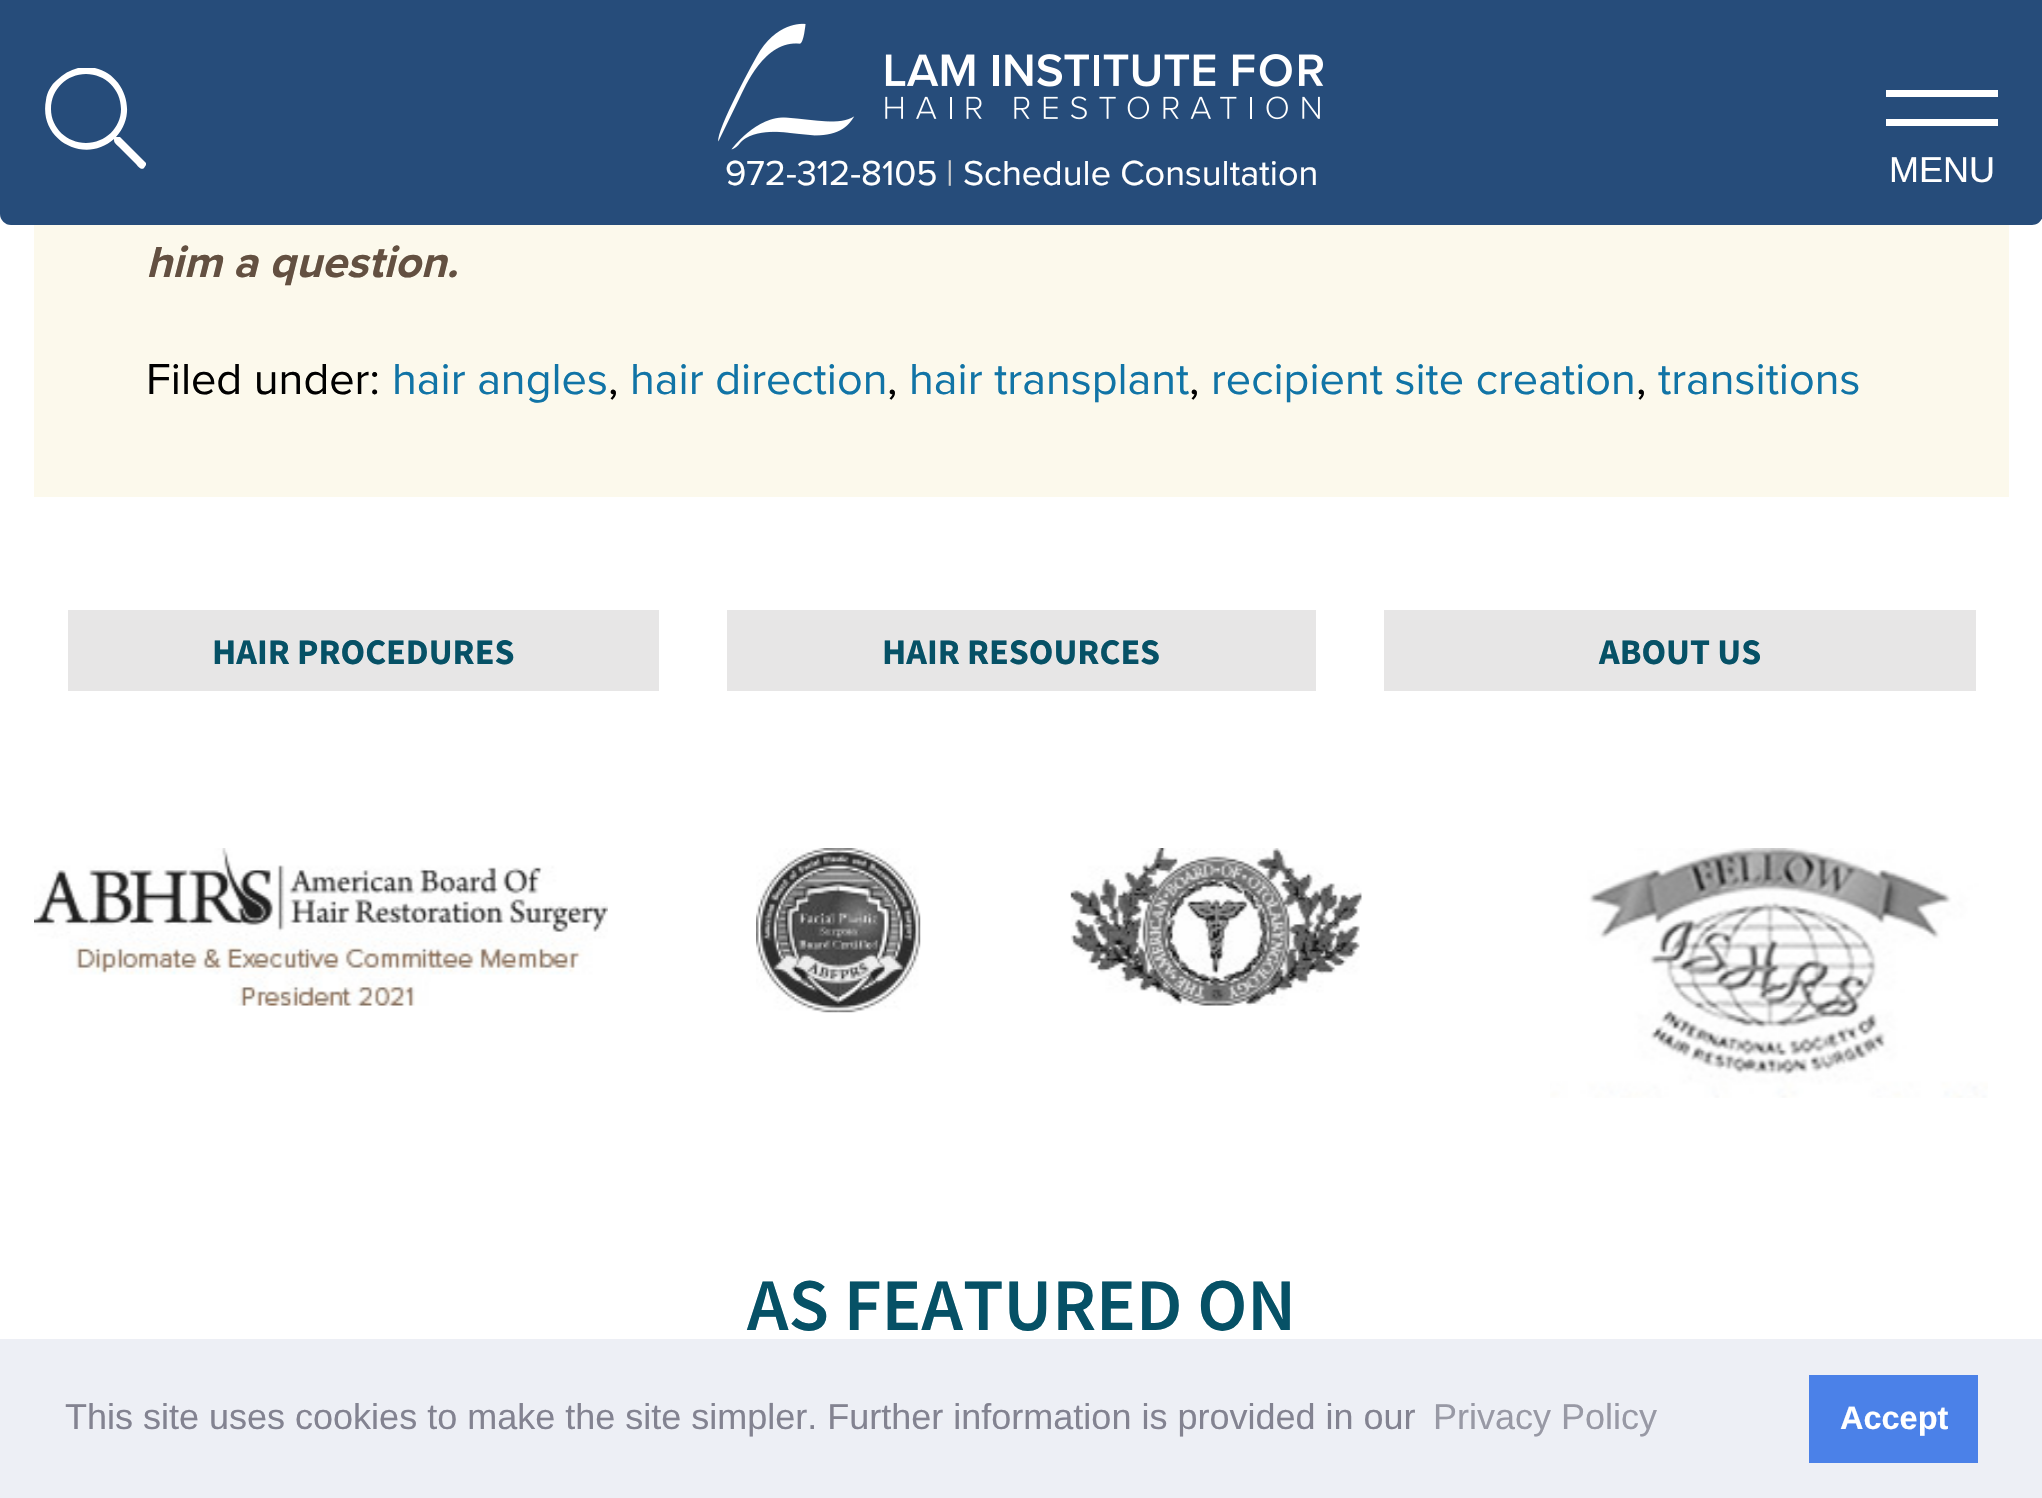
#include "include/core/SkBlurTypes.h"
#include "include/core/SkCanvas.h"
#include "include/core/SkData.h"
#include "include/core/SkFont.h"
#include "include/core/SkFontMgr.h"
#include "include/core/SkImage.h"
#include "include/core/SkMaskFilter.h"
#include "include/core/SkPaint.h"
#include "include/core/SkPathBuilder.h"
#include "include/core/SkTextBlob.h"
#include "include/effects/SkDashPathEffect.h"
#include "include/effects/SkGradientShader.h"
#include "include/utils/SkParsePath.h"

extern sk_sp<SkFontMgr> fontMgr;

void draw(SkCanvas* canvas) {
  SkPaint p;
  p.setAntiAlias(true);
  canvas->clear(SK_ColorWHITE);
  p.setColor(SkColorSetRGB(38, 76, 122));
  canvas->drawPath(SkPathBuilder().moveTo(0, 0).lineTo(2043, 0).lineTo(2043, 214).cubicTo(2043, 220, 2038, 225, 2032, 225).lineTo(11, 225).cubicTo(5, 225, 0, 220, 0, 214).close().detach(), p);
  canvas->save();
  canvas->clipRect(SkRect::MakeLTRB(45, 68, 146, 169));
  p.setColor(SK_ColorWHITE);
  canvas->drawPath(SkPathBuilder().moveTo(146, 163).lineTo(120, 137).lineTo(118, 137).lineTo(116, 137).cubicTo(143, 108, 117, 60, 78, 68).cubicTo(70, 70, 63, 74, 57, 80).cubicTo(51, 85, 47, 92, 46, 100).cubicTo(38, 140, 85, 165, 114, 139).cubicTo(114, 143, 115, 143, 119, 147).lineTo(136, 164).cubicTo(137, 165, 141, 171, 144, 168).lineTo(146, 165).close().moveTo(86, 143).cubicTo(67, 143, 51, 128, 51, 109).cubicTo(51, 89, 67, 74, 86, 74).cubicTo(105, 74, 121, 89, 121, 109).cubicTo(121, 128, 105, 143, 86, 143).close().detach(), p);
  canvas->restore();
  canvas->drawImageRect(SkImages::DeferredFromEncodedData(SkData::MakeFromFileName("images/1.png")), SkRect::MakeLTRB(718, 23, 1324, 150), SkSamplingOptions());
  canvas->drawRect(SkRect::MakeLTRB(1886, 90, 1998, 97), p);
  canvas->drawRect(SkRect::MakeLTRB(1886, 119, 1998, 126), p);
  p.setColor(SkColorSetRGB(252, 249, 236));
  canvas->drawRect(SkRect::MakeLTRB(34, 225, 2009, 497), p);
  p.setColor(SkColorSetRGB(231, 230, 230));
  canvas->drawRect(SkRect::MakeLTRB(68, 610, 659, 691), p);
  canvas->drawRect(SkRect::MakeLTRB(727, 610, 1316, 691), p);
  canvas->drawRect(SkRect::MakeLTRB(1384, 610, 1976, 691), p);
  canvas->drawImageRect(SkImages::DeferredFromEncodedData(SkData::MakeFromFileName("images/2.png")), SkRect::MakeLTRB(34, 848, 608, 1006), SkSamplingOptions());
  canvas->drawImageRect(SkImages::DeferredFromEncodedData(SkData::MakeFromFileName("images/3.png")), SkRect::MakeLTRB(756, 848, 921, 1013), SkSamplingOptions());
  canvas->drawImageRect(SkImages::DeferredFromEncodedData(SkData::MakeFromFileName("images/4.png")), SkRect::MakeLTRB(1070, 848, 1362, 1006), SkSamplingOptions());
  canvas->drawImageRect(SkImages::DeferredFromEncodedData(SkData::MakeFromFileName("images/5.png")), SkRect::MakeLTRB(1550, 848, 1988, 1098), SkSamplingOptions());
  p.setColor(SkColorSetRGB(237, 239, 245));
  canvas->drawRect(SkRect::MakeLTRB(0, 1339, 2042, 1498), p);
  p.setColor(SkColorSetRGB(75, 129, 232));
  canvas->drawRect(SkRect::MakeLTRB(1809, 1375, 1978, 1463), p);
  SkFont font1(fontMgr->matchFamilyStyle("Proxima Nova", SkFontStyle::Normal()), 36);
  font1.setSubpixel(true);
  p.setColor(SK_ColorWHITE);
  canvas->drawString("972-312-8105", 725, 185, font1, p);
  p.setColor(SkColorSetRGB(204, 204, 204));
  canvas->drawString("|", 946, 185, font1, p);
  p.setColor(SK_ColorWHITE);
  canvas->drawString("Schedule Consultation", 963, 185, font1, p);
  SkFont font2(fontMgr->matchFamilyStyle("Liberation Sans", SkFontStyle::Normal()), 36);
  font2.setSubpixel(true);
  canvas->drawString("MENU", 1889, 182, font2, p);
  SkFont font3(fontMgr->matchFamilyStyle("Proxima Nova", SkFontStyle::BoldItalic()), 45);
  font3.setSubpixel(true);
  p.setColor(SkColorSetRGB(99, 80, 65));
  canvas->drawString("him a question.", 146, 277, font3, p);
  SkFont font4(fontMgr->matchFamilyStyle("Proxima Nova", SkFontStyle::Normal()), 45);
  font4.setSubpixel(true);
  p.setColor(SK_ColorBLACK);
  canvas->drawString("Filed under:", 146, 394, font4, p);
  p.setColor(SkColorSetRGB(17, 116, 166));
  canvas->drawString("hair angles", 392, 394, font4, p);
  p.setColor(SK_ColorBLACK);
  canvas->drawString(",", 608, 394, font4, p);
  p.setColor(SkColorSetRGB(17, 116, 166));
  canvas->drawString("hair direction", 630, 394, font4, p);
  p.setColor(SK_ColorBLACK);
  canvas->drawString(",", 887, 394, font4, p);
  p.setColor(SkColorSetRGB(17, 116, 166));
  canvas->drawString("hair transplant", 909, 394, font4, p);
  p.setColor(SK_ColorBLACK);
  canvas->drawString(",", 1189, 394, font4, p);
  p.setColor(SkColorSetRGB(17, 116, 166));
  canvas->drawString("recipient site creation", 1211, 394, font4, p);
  p.setColor(SK_ColorBLACK);
  canvas->drawString(",", 1636, 394, font4, p);
  p.setColor(SkColorSetRGB(17, 116, 166));
  canvas->drawString("transitions", 1658, 394, font4, p);
  SkFont font5(fontMgr->matchFamilyStyle("Source Sans Pro", SkFontStyle::Bold()), 36);
  font5.setSubpixel(true);
  p.setColor(SkColorSetRGB(6, 81, 102));
  canvas->drawString("HAIR PROCEDURES", 212, 664, font5, p);
  canvas->drawString("HAIR RESOURCES", 882, 664, font5, p);
  canvas->drawString("ABOUT US", 1599, 664, font5, p);
  SkFont font6(fontMgr->matchFamilyStyle("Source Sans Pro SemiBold", SkFontStyle(600, SkFontStyle::kNormal_Width, SkFontStyle::kUpright_Slant)), 74.25f);
  font6.setSubpixel(true);
  canvas->drawString("AS FEATURED ON", 747, 1330, font6, p);
  p.setColor(SkColorSetRGB(131, 131, 145));
  canvas->drawString("This site uses cookies to make the site simpler. Further information is provided in our", 65, 1429, font2, p);
  p.setColor(SkColorSetRGB(152, 153, 165));
  canvas->drawString("Privacy Policy", 1433, 1429, font2, p);
  SkFont font7(fontMgr->matchFamilyStyle("Liberation Sans", SkFontStyle::Bold()), 32.5f);
  font7.setSubpixel(true);
  p.setColor(SK_ColorWHITE);
  canvas->drawString("Accept", 1840, 1429, font7, p);
}
